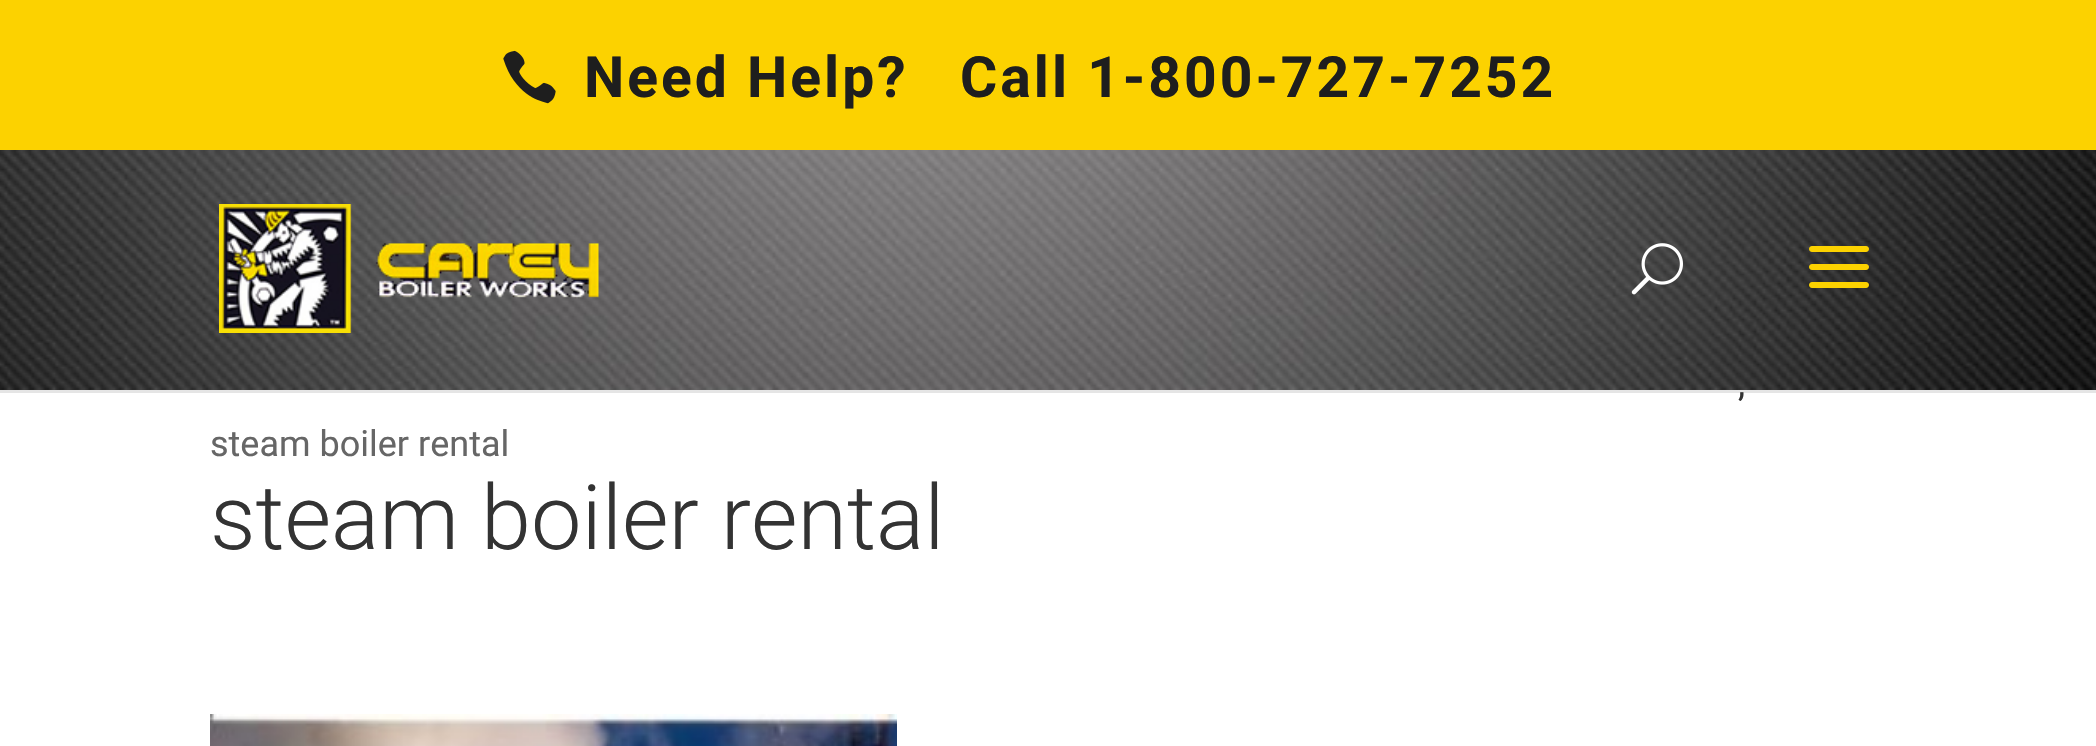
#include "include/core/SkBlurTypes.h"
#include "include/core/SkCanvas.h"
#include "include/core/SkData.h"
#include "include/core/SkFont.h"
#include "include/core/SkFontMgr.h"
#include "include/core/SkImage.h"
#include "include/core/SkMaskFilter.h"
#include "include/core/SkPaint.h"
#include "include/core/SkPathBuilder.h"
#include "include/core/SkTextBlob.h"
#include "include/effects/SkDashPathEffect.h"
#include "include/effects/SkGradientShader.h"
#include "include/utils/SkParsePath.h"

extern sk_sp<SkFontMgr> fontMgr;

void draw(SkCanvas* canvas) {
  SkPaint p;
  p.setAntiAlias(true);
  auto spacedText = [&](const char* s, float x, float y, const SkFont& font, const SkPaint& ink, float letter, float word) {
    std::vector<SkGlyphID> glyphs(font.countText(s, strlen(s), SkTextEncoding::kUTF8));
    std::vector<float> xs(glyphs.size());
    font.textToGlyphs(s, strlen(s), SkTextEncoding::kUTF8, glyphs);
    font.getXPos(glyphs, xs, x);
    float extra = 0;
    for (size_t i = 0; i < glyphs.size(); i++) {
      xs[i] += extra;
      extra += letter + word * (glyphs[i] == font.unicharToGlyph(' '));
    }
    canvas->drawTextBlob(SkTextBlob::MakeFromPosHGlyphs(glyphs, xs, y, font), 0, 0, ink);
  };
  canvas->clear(SK_ColorWHITE);
  p.setColor(SkColorSetRGB(252, 210, 0));
  canvas->drawRect(SkRect::MakeLTRB(0, 0, 2096, 150), p);
  canvas->drawImageRect(SkImages::DeferredFromEncodedData(SkData::MakeFromFileName("images/1.png")), SkRect::MakeLTRB(503, 50, 556, 104), SkSamplingOptions());
  p.setColor(SkColorSetARGB(26, 0, 0, 0));
  canvas->drawRect(SkRect::MakeLTRB(0, 390, 2096, 393), p);
  canvas->drawImageRect(SkImages::DeferredFromEncodedData(SkData::MakeFromFileName("images/2.png")), SkRect::MakeLTRB(0, 150, 2096, 390), SkSamplingOptions());
  canvas->drawImageRect(SkImages::DeferredFromEncodedData(SkData::MakeFromFileName("images/3.png")), SkRect::MakeLTRB(219, 204, 599, 333), SkSamplingOptions());
  canvas->drawImageRect(SkImages::DeferredFromEncodedData(SkData::MakeFromFileName("images/4.png")), SkRect::MakeLTRB(1631, 243, 1683, 295), SkSamplingOptions());
  canvas->drawImageRect(SkImages::DeferredFromEncodedData(SkData::MakeFromFileName("images/5.png")), SkRect::MakeLTRB(1809, 246, 1869, 288), SkSamplingOptions());
  canvas->drawImageRect(SkImages::DeferredFromEncodedData(SkData::MakeFromFileName("images/6.png")), SkRect::MakeLTRB(210, 714, 897, 746), SkSamplingOptions());
  SkFont font1(fontMgr->matchFamilyStyle("Roboto", SkFontStyle::Bold()), 57);
  font1.setSubpixel(true);
  p.setColor(SkColorSetRGB(30, 30, 30));
  spacedText("Need Help?", 584, 97, font1, p, 3, 0);
  spacedText("Call 1-800-727-7252", 960, 97, font1, p, 3, 0);
  SkFont font2(fontMgr->matchFamilyStyle("Roboto", SkFontStyle::Normal()), 36);
  font2.setSubpixel(true);
  p.setColor(SkColorSetRGB(51, 51, 51));
  canvas->drawString(",", 1738, 396, font2, p);
  p.setColor(SkColorSetRGB(102, 102, 102));
  canvas->drawString("steam boiler rental", 210, 456, font2, p);
  SkFont font3(fontMgr->matchFamilyStyle("Roboto", SkFontStyle(300, SkFontStyle::kNormal_Width, SkFontStyle::kUpright_Slant)), 90);
  font3.setSubpixel(true);
  p.setColor(SkColorSetRGB(51, 51, 51));
  canvas->drawString("steam boiler rental", 210, 549, font3, p);
}
